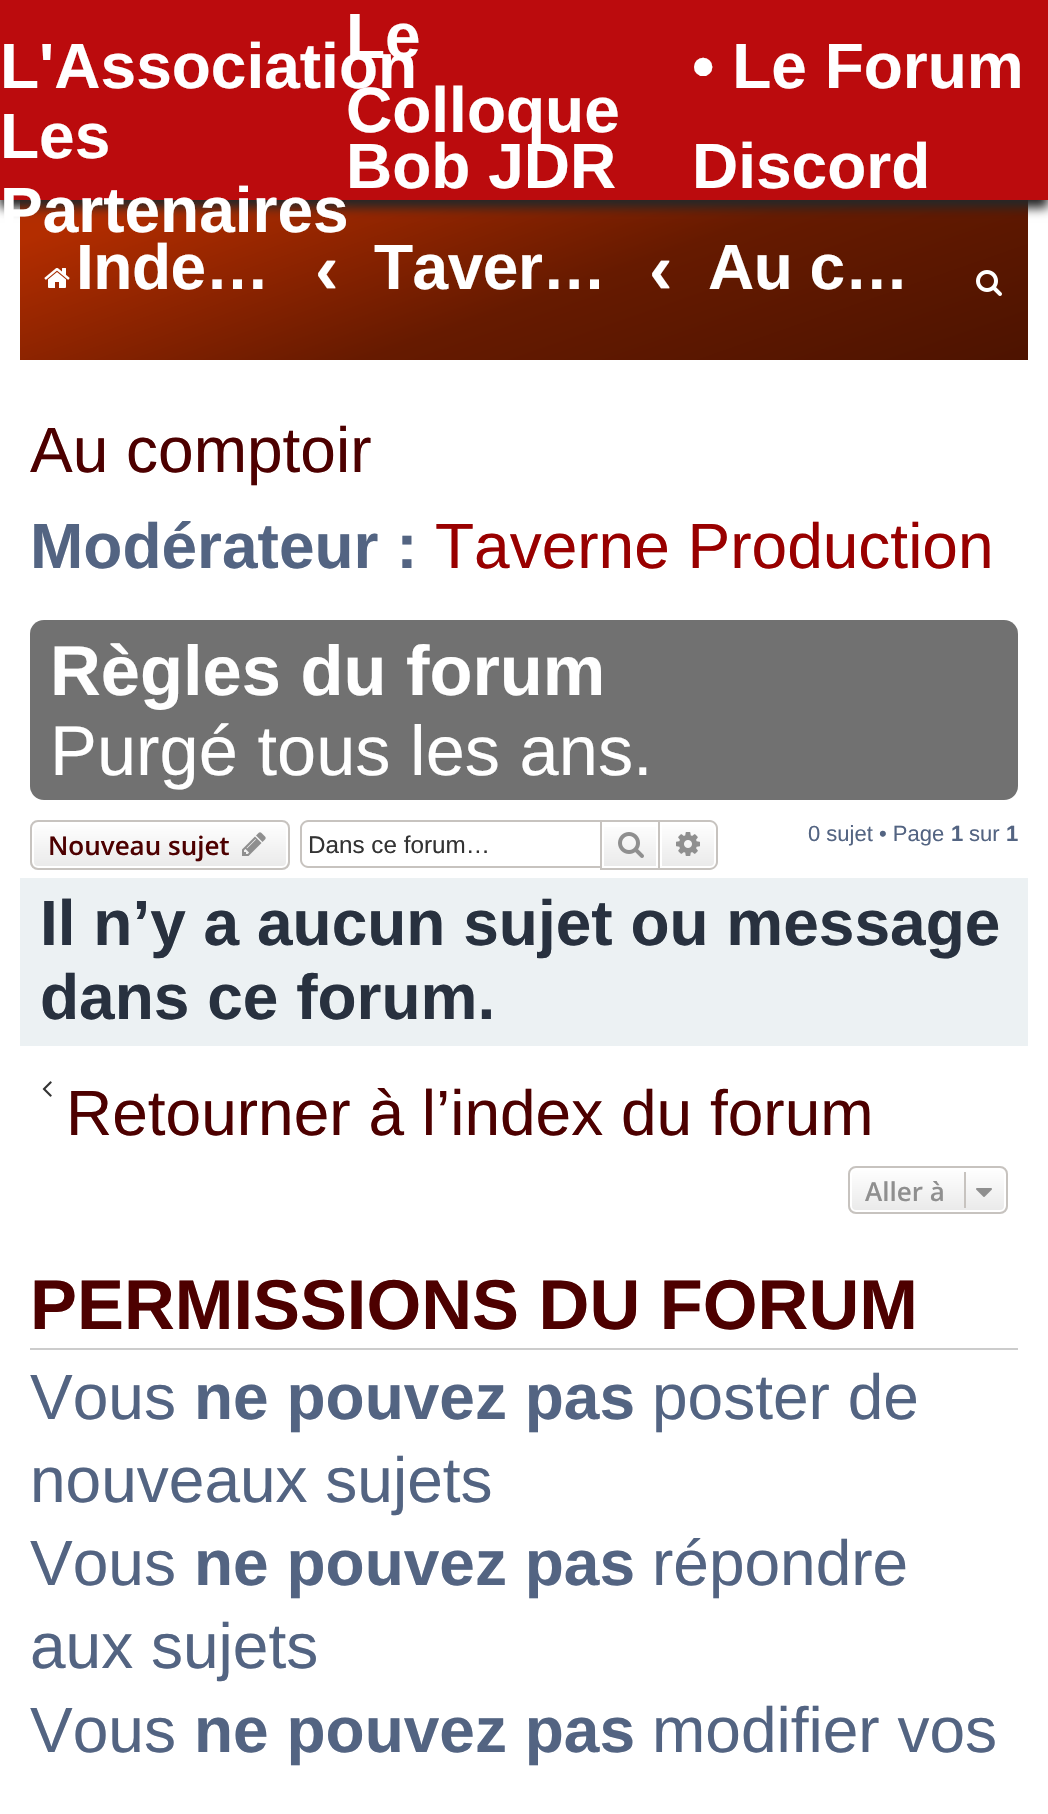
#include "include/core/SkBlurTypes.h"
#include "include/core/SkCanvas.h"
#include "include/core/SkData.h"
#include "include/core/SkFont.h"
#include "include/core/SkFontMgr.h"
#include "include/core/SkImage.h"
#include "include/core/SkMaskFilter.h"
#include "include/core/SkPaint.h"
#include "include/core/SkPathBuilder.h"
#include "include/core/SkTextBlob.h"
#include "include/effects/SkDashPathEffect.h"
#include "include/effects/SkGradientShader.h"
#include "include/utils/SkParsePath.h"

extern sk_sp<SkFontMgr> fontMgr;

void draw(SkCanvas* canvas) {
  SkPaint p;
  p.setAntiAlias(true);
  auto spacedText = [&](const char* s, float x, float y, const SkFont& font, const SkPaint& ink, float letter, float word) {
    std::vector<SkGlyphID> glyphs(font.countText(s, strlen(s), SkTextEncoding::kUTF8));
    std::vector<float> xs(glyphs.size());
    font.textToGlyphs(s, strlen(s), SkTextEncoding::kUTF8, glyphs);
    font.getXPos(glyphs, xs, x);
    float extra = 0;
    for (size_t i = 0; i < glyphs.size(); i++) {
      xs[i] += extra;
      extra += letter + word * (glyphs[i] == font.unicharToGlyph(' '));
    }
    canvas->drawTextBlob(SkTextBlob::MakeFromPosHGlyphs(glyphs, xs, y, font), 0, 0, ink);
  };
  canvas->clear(SK_ColorWHITE);
  {
    const SkColor colors[] = {SkColorSetRGB(179, 45, 0), SkColorSetRGB(179, 45, 0), SkColorSetRGB(102, 26, 0), SkColorSetRGB(77, 19, 0)};
    const float stops[] = {0, 0.33f, 0.67f, 1};
    const SkPoint ends[] = {{414, -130}, {634, 498}};
    p.setShader(SkGradientShader::MakeLinear(ends, colors, stops, 4, SkTileMode::kClamp));
    p.setAlpha(255);
  }
  canvas->drawRect(SkRect::MakeLTRB(20, 200, 1028, 360), p);
  p.setShader(nullptr);
  p.setColor(SkColorSetRGB(38, 38, 38));
  p.setMaskFilter(SkMaskFilter::MakeBlur(kNormal_SkBlurStyle, 5));
  canvas->drawRect(SkRect::MakeLTRB(0, 8, 1048, 208), p);
  p.setMaskFilter(nullptr);
  p.setColor(SkColorSetRGB(187, 11, 13));
  canvas->drawRect(SkRect::MakeLTRB(0, 0, 1048, 200), p);
  canvas->drawImageRect(SkImages::DeferredFromEncodedData(SkData::MakeFromFileName("images/1.png")), SkRect::MakeLTRB(44, 268, 70, 288), SkSamplingOptions());
  canvas->drawImageRect(SkImages::DeferredFromEncodedData(SkData::MakeFromFileName("images/2.png")), SkRect::MakeLTRB(976, 270, 1002, 296), SkSamplingOptions());
  p.setColor(SkColorSetRGB(113, 113, 113));
  canvas->drawRoundRect(SkRect::MakeLTRB(30, 620, 1018, 800), 14, 14, p);
  canvas->save();
  canvas->clipPath(SkPathBuilder().moveTo(38, 820).lineTo(282, 820).cubicTo(286.5f, 820, 290, 823.5f, 290, 828).lineTo(290, 862).cubicTo(290, 866.5f, 286.5f, 870, 282, 870).lineTo(38, 870).cubicTo(33.5f, 870, 30, 866.5f, 30, 862).lineTo(30, 828).cubicTo(30, 823.5f, 33.5f, 820, 38, 820).close().detach(), true);
  {
    const SkColor colors[] = {SK_ColorWHITE, SkColorSetRGB(233, 233, 233)};
    const float stops[] = {0, 1};
    const SkPoint ends[] = {{160, 822}, {160, 868}};
    p.setShader(SkGradientShader::MakeLinear(ends, colors, stops, 2, SkTileMode::kClamp));
    p.setAlpha(255);
  }
  canvas->drawRect(SkRect::MakeLTRB(30, 822, 290, 868), p);
  canvas->restore();
  p.setStyle(SkPaint::kStroke_Style);
  p.setStrokeWidth(2);
  p.setShader(nullptr);
  p.setColor(SK_ColorWHITE);
  canvas->drawRoundRect(SkRect::MakeLTRB(33, 823, 287, 867), 5, 5, p);
  p.setColor(SkColorSetRGB(199, 195, 191));
  canvas->drawRoundRect(SkRect::MakeLTRB(31, 821, 289, 869), 7, 7, p);
  canvas->drawImageRect(SkImages::DeferredFromEncodedData(SkData::MakeFromFileName("images/3.png")), SkRect::MakeLTRB(242, 832, 266, 856), SkSamplingOptions());
  p.setStyle(SkPaint::kFill_Style);
  canvas->drawPath(SkPathBuilder(SkPathFillType::kEvenOdd).moveTo(308, 820).lineTo(600, 820).lineTo(600, 868).lineTo(308, 868).cubicTo(304, 868, 300, 864, 300, 860).lineTo(300, 828).cubicTo(300, 824, 304, 820, 308, 820).close().moveTo(308, 822).lineTo(600, 822).lineTo(600, 866).lineTo(308, 866).cubicTo(305, 866, 302, 863, 302, 860).lineTo(302, 828).cubicTo(302, 825, 305, 822, 308, 822).close().detach(), p);
  {
    const SkColor colors[] = {SK_ColorWHITE, SkColorSetRGB(233, 233, 233)};
    const float stops[] = {0, 1};
    const SkPoint ends[] = {{630, 822}, {630, 868}};
    p.setShader(SkGradientShader::MakeLinear(ends, colors, stops, 2, SkTileMode::kClamp));
    p.setAlpha(255);
  }
  canvas->drawRect(SkRect::MakeLTRB(604, 827, 656, 866), p);
  p.setStyle(SkPaint::kStroke_Style);
  p.setShader(nullptr);
  p.setColor(SkColorSetRGB(199, 195, 191));
  canvas->drawRect(SkRect::MakeLTRB(601, 821, 659, 869), p);
  canvas->drawImageRect(SkImages::DeferredFromEncodedData(SkData::MakeFromFileName("images/4.png")), SkRect::MakeLTRB(618, 832, 644, 858), SkSamplingOptions());
  p.setStyle(SkPaint::kFill_Style);
  {
    const SkColor colors[] = {SK_ColorWHITE, SkColorSetRGB(233, 233, 233)};
    const float stops[] = {0, 1};
    const SkPoint ends[] = {{688, 822}, {688, 868}};
    p.setShader(SkGradientShader::MakeLinear(ends, colors, stops, 2, SkTileMode::kClamp));
    p.setAlpha(255);
  }
  canvas->drawPath(SkPathBuilder().moveTo(661, 823).lineTo(710, 823).cubicTo(713, 823, 715, 825, 715, 828).lineTo(715, 862).cubicTo(715, 865, 713, 867, 710, 867).lineTo(661, 867).close().detach(), p);
  p.setStyle(SkPaint::kStroke_Style);
  p.setShader(nullptr);
  p.setColor(SK_ColorWHITE);
  canvas->drawPath(SkPathBuilder().moveTo(661, 823).lineTo(710, 823).cubicTo(713, 823, 715, 825, 715, 828).lineTo(715, 862).cubicTo(715, 865, 713, 867, 710, 867).lineTo(661, 867).close().detach(), p);
  p.setStyle(SkPaint::kFill_Style);
  p.setColor(SkColorSetRGB(199, 195, 191));
  canvas->drawPath(SkPathBuilder(SkPathFillType::kEvenOdd).moveTo(660, 820).lineTo(710, 820).cubicTo(714, 820, 718, 824, 718, 828).lineTo(718, 862).cubicTo(718, 866, 714, 870, 710, 870).lineTo(660, 870).close().moveTo(660, 822).lineTo(710, 822).cubicTo(713, 822, 716, 825, 716, 828).lineTo(716, 862).cubicTo(716, 865, 713, 868, 710, 868).lineTo(660, 868).close().detach(), p);
  canvas->drawImageRect(SkImages::DeferredFromEncodedData(SkData::MakeFromFileName("images/5.png")), SkRect::MakeLTRB(676, 832, 700, 856), SkSamplingOptions());
  p.setColor(SkColorSetRGB(236, 241, 243));
  canvas->drawRect(SkRect::MakeLTRB(20, 878, 1028, 1046), p);
  canvas->drawImageRect(SkImages::DeferredFromEncodedData(SkData::MakeFromFileName("images/6.png")), SkRect::MakeLTRB(42, 1081, 52, 1097), SkSamplingOptions());
  canvas->save();
  canvas->clipPath(SkPathBuilder().moveTo(856, 1166).lineTo(1000, 1166).cubicTo(1004.5f, 1166, 1008, 1169.5f, 1008, 1174).lineTo(1008, 1206).cubicTo(1008, 1210.5f, 1004.5f, 1214, 1000, 1214).lineTo(856, 1214).cubicTo(851.5f, 1214, 848, 1210.5f, 848, 1206).lineTo(848, 1174).cubicTo(848, 1169.5f, 851.5f, 1166, 856, 1166).close().detach(), true);
  {
    const SkColor colors[] = {SK_ColorWHITE, SkColorSetRGB(233, 233, 233)};
    const float stops[] = {0, 1};
    const SkPoint ends[] = {{928, 1168}, {928, 1212}};
    p.setShader(SkGradientShader::MakeLinear(ends, colors, stops, 2, SkTileMode::kClamp));
    p.setAlpha(255);
  }
  canvas->drawRect(SkRect::MakeLTRB(848, 1168, 1008, 1212), p);
  canvas->restore();
  p.setStyle(SkPaint::kStroke_Style);
  p.setShader(nullptr);
  p.setColor(SK_ColorWHITE);
  canvas->drawRoundRect(SkRect::MakeLTRB(851, 1169, 1005, 1211), 5, 5, p);
  p.setColor(SkColorSetRGB(199, 195, 191));
  canvas->drawRoundRect(SkRect::MakeLTRB(849, 1167, 1007, 1213), 7, 7, p);
  p.setStyle(SkPaint::kFill_Style);
  canvas->drawRect(SkRect::MakeLTRB(964, 1172, 966, 1208), p);
  canvas->drawImageRect(SkImages::DeferredFromEncodedData(SkData::MakeFromFileName("images/7.png")), SkRect::MakeLTRB(976, 1188, 992, 1197), SkSamplingOptions());
  p.setColor(SkColorSetRGB(204, 204, 204));
  canvas->drawRect(SkRect::MakeLTRB(30, 1348, 1018, 1350), p);
  SkFont font1(fontMgr->matchFamilyStyle("Liberation Sans", SkFontStyle::Bold()), 64);
  font1.setSubpixel(true);
  p.setColor(SK_ColorWHITE);
  canvas->drawString("L'Association", 0, 88, font1, p);
  canvas->drawString("Le", 346, 58, font1, p);
  canvas->drawString("Colloque", 346, 132, font1, p);
  canvas->drawString("• Le Forum", 692, 88, font1, p);
  canvas->drawString("Les", 0, 158, font1, p);
  canvas->drawString("Partenaires", 0, 232, font1, p);
  canvas->drawString("Bob JDR", 346, 188, font1, p);
  canvas->drawString("Discord", 692, 188, font1, p);
  spacedText("Inde…", 76, 289, font1, p, -0.5f, 0);
  SkFont font2(fontMgr->matchFamilyStyle("Liberation Sans", SkFontStyle::Bold()), 70.4f);
  font2.setSubpixel(true);
  canvas->drawString("‹", 315, 293, font2, p);
  spacedText("Taver…", 374, 289, font1, p, -0.5f, 0);
  canvas->drawString("‹", 649, 293, font2, p);
  spacedText("Au c…", 708, 289, font1, p, -0.5f, 0);
  SkFont font3(fontMgr->matchFamilyStyle("Liberation Sans", SkFontStyle::Normal()), 64);
  font3.setSubpixel(true);
  p.setColor(SkColorSetRGB(77, 0, 0));
  canvas->drawString("Au comptoir", 30, 472, font3, p);
  p.setColor(SkColorSetRGB(83, 100, 130));
  canvas->drawString("Modérateur :", 30, 568, font1, p);
  p.setColor(SkColorSetRGB(153, 0, 0));
  canvas->drawString("Taverne Production", 435, 568, font3, p);
  p.setColor(SK_ColorWHITE);
  canvas->drawString("Règles du forum", 50, 695, font2, p);
  SkFont font4(fontMgr->matchFamilyStyle("Liberation Sans", SkFontStyle::Normal()), 70.4f);
  font4.setSubpixel(true);
  canvas->drawString("Purgé tous les ans.", 50, 775, font4, p);
  SkFont font5(fontMgr->matchFamilyStyle("Open Sans", SkFontStyle(600, SkFontStyle::kNormal_Width, SkFontStyle::kUpright_Slant)), 26);
  font5.setSubpixel(true);
  p.setColor(SkColorSetRGB(77, 0, 0));
  canvas->drawString("Nouveau sujet", 48, 855, font5, p);
  SkFont font6(fontMgr->matchFamilyStyle("Liberation Sans", SkFontStyle::Normal()), 24.25f);
  font6.setSubpixel(true);
  p.setColor(SkColorSetRGB(51, 51, 51));
  canvas->drawString("Dans ce forum…", 308, 853, font6, p);
  SkFont font7(fontMgr->matchFamilyStyle("Liberation Sans", SkFontStyle::Normal()), 22);
  font7.setSubpixel(true);
  p.setColor(SkColorSetRGB(83, 100, 130));
  canvas->drawString("0 sujet • Page", 808, 841, font7, p);
  SkFont font8(fontMgr->matchFamilyStyle("Liberation Sans", SkFontStyle::Bold()), 22);
  font8.setSubpixel(true);
  canvas->drawString("1", 951, 841, font8, p);
  canvas->drawString("sur", 969, 841, font7, p);
  canvas->drawString("1", 1006, 841, font8, p);
  p.setColor(SkColorSetRGB(40, 49, 63));
  canvas->drawString("Il n’y a aucun sujet ou message", 40, 945, font1, p);
  canvas->drawString("dans ce forum.", 40, 1019, font1, p);
  p.setColor(SkColorSetRGB(77, 0, 0));
  canvas->drawString("Retourner à l’index du forum", 66, 1135, font3, p);
  p.setColor(SkColorSetRGB(143, 143, 143));
  canvas->drawString("Aller à", 865, 1201, font5, p);
  p.setColor(SkColorSetRGB(77, 0, 0));
  canvas->drawString("PERMISSIONS DU FORUM", 30, 1329, font2, p);
  p.setColor(SkColorSetRGB(83, 100, 130));
  canvas->drawString("Vous", 30, 1419, font3, p);
  canvas->drawString("ne pouvez pas", 194, 1419, font1, p);
  canvas->drawString("poster de", 652, 1419, font3, p);
  canvas->drawString("nouveaux sujets", 30, 1502, font3, p);
  canvas->drawString("Vous", 30, 1585, font3, p);
  canvas->drawString("ne pouvez pas", 194, 1585, font1, p);
  canvas->drawString("répondre", 652, 1585, font3, p);
  canvas->drawString("aux sujets", 30, 1668, font3, p);
  canvas->drawString("Vous", 30, 1752, font3, p);
  canvas->drawString("ne pouvez pas", 194, 1752, font1, p);
  canvas->drawString("modifier vos", 652, 1752, font3, p);
}
